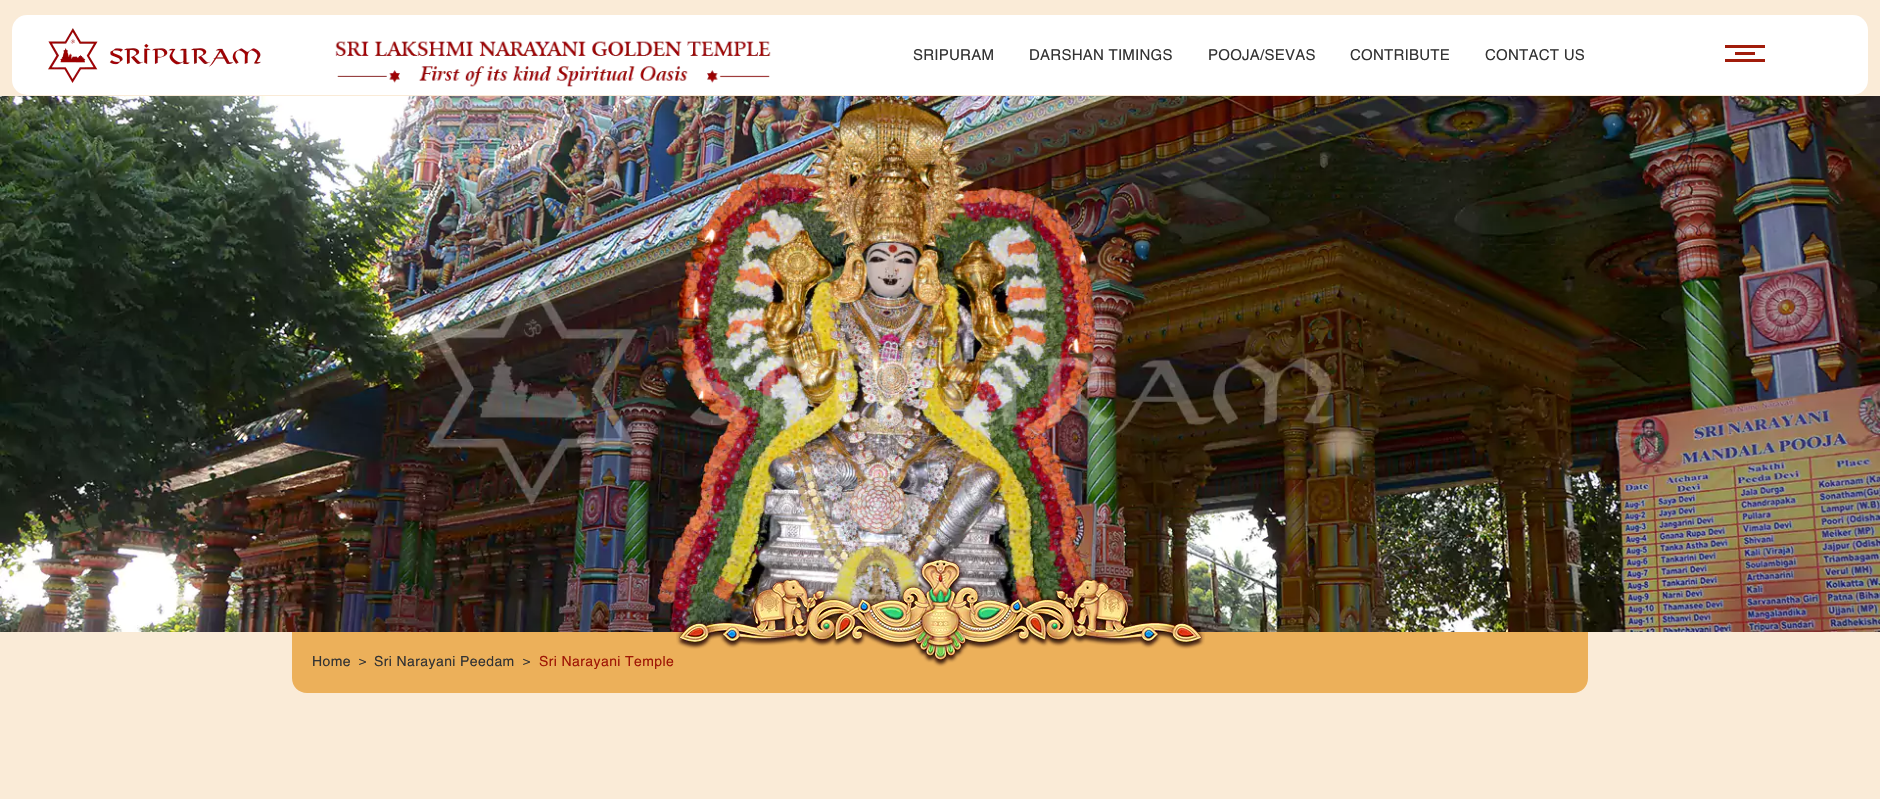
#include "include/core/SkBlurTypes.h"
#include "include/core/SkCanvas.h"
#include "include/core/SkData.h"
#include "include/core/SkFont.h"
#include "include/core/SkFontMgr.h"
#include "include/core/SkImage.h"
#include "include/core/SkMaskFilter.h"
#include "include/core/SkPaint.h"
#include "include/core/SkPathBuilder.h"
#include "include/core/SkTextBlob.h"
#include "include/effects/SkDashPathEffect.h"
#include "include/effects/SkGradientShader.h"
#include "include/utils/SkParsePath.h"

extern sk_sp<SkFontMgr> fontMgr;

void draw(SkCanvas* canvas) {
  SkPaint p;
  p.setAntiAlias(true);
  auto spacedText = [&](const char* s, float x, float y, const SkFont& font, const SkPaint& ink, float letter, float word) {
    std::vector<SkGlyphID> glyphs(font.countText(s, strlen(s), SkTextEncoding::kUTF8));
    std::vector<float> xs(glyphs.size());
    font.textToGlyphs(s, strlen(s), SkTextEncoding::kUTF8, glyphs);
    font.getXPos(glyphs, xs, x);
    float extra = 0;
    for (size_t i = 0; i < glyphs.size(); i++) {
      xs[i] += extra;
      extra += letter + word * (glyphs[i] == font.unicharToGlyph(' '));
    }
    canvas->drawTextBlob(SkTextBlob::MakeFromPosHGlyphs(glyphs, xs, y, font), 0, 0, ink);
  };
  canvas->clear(SkColorSetRGB(250, 235, 215));
  p.setColor(SK_ColorWHITE);
  canvas->drawRoundRect(SkRect::MakeLTRB(12, 15, 1868, 95), 15, 15, p);
  canvas->drawImageRect(SkImages::DeferredFromEncodedData(SkData::MakeFromFileName("images/1.png")), SkRect::MakeLTRB(48, 28, 261, 83), SkSamplingOptions());
  canvas->drawImageRect(SkImages::DeferredFromEncodedData(SkData::MakeFromFileName("images/2.png")), SkRect::MakeLTRB(335, 41, 771, 87), SkSamplingOptions());
  p.setColor(SkColorSetRGB(161, 28, 11));
  canvas->drawRect(SkRect::MakeLTRB(1725, 45, 1765, 48), p);
  canvas->drawRect(SkRect::MakeLTRB(1735, 52, 1755, 55), p);
  canvas->drawRect(SkRect::MakeLTRB(1725, 59, 1765, 62), p);
  canvas->drawImageRect(SkImages::DeferredFromEncodedData(SkData::MakeFromFileName("images/3.png")), SkRect::MakeLTRB(0, 96, 1880, 632), SkSamplingOptions());
  p.setColor(SkColorSetRGB(236, 176, 90));
  canvas->drawPath(SkPathBuilder().moveTo(292, 632).lineTo(1588, 632).lineTo(1588, 678).cubicTo(1588, 686.5f, 1581.5f, 693, 1573, 693).lineTo(307, 693).cubicTo(298.5f, 693, 292, 686.5f, 292, 678).close().detach(), p);
  canvas->drawImageRect(SkImages::DeferredFromEncodedData(SkData::MakeFromFileName("images/4.png")), SkRect::MakeLTRB(676, 555, 1205, 667), SkSamplingOptions());
  SkFont font1(fontMgr->matchFamilyStyle("Helvetica", SkFontStyle::Normal()), 15);
  font1.setSubpixel(true);
  p.setColor(SkColorSetRGB(51, 51, 51));
  spacedText("SRIPURAM", 913, 60, font1, p, 0.25f, 0);
  spacedText("DARSHAN TIMINGS", 1029, 60, font1, p, 0.25f, 0);
  spacedText("POOJA/SEVAS", 1208, 60, font1, p, 0.25f, 0);
  spacedText("CONTRIBUTE", 1350, 60, font1, p, 0.25f, 0);
  spacedText("CONTACT US", 1485, 60, font1, p, 0.25f, 0);
  SkFont font2(fontMgr->matchFamilyStyle("Helvetica", SkFontStyle::Normal()), 14);
  font2.setSubpixel(true);
  spacedText("Home", 312, 666, font2, p, 0.4f, 0);
  SkFont font3(fontMgr->matchFamilyStyle("Helvetica", SkFontStyle::Normal()), 12);
  font3.setSubpixel(true);
  canvas->drawString(">", 359, 665, font3, p);
  spacedText("Sri Narayani Peedam", 374, 666, font2, p, 0.4f, 0);
  spacedText(">", 523, 665, font3, p, 0.4f, 0);
  p.setColor(SkColorSetRGB(159, 22, 5));
  spacedText("Sri Narayani Temple", 539, 666, font2, p, 0.4f, 0);
}
